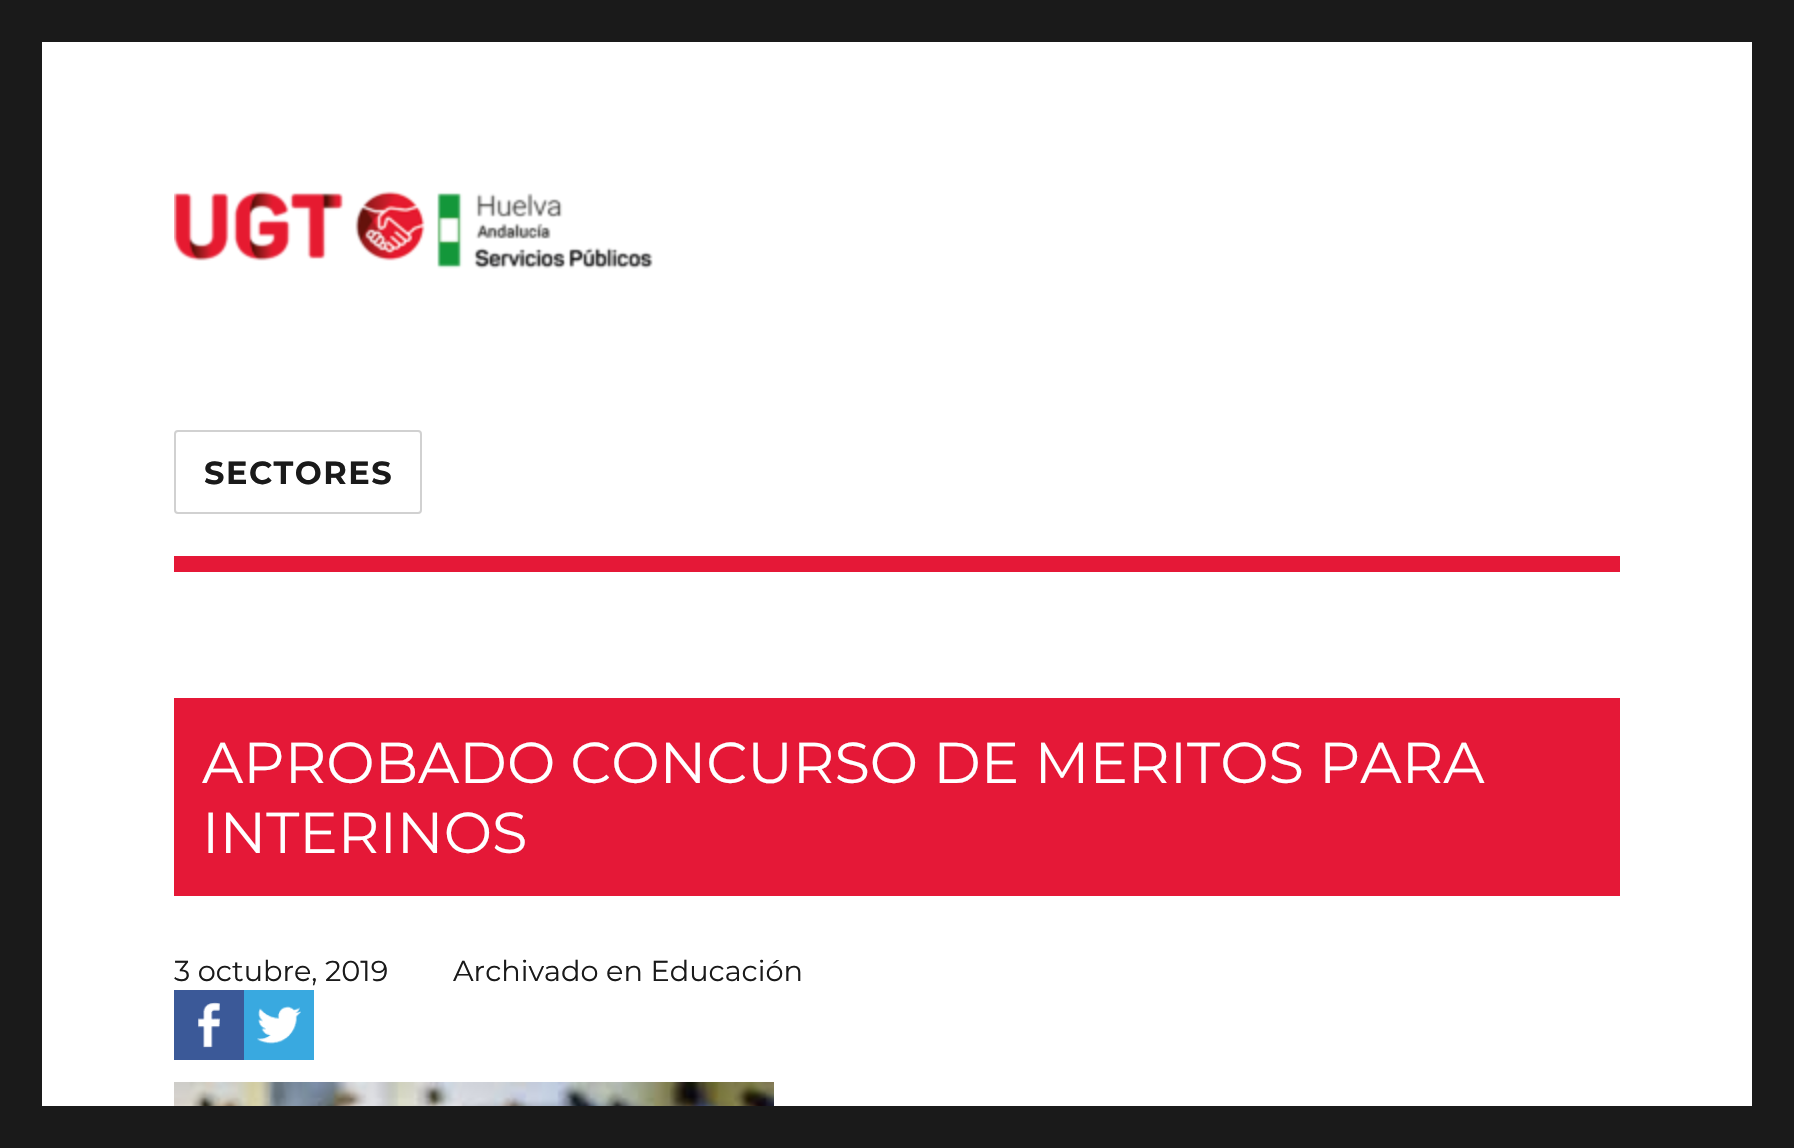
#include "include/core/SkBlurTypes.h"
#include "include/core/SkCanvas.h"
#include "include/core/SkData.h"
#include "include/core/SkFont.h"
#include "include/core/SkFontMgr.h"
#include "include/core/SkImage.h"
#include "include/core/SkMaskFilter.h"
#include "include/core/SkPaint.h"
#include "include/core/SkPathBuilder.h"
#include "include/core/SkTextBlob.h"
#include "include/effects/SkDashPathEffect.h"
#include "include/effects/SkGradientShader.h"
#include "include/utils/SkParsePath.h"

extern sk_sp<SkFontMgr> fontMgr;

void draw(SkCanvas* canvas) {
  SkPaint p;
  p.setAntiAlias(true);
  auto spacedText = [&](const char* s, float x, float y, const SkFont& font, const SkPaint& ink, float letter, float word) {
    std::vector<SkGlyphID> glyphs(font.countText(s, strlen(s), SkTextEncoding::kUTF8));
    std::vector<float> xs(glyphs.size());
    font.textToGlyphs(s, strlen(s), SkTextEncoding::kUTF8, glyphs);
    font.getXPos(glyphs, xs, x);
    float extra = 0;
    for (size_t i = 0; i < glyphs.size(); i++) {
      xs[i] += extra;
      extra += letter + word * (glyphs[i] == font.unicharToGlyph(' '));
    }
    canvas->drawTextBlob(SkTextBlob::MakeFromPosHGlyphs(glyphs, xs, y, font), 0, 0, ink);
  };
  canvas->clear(SkColorSetRGB(26, 26, 26));
  p.setColor(SK_ColorWHITE);
  canvas->drawRect(SkRect::MakeLTRB(42, 42, 1752, 1106), p);
  canvas->drawImageRect(SkImages::DeferredFromEncodedData(SkData::MakeFromFileName("images/1.png")), SkRect::MakeLTRB(174, 191, 653, 269), SkSamplingOptions());
  p.setStyle(SkPaint::kStroke_Style);
  p.setStrokeWidth(2);
  p.setColor(SkColorSetRGB(209, 209, 209));
  canvas->drawRoundRect(SkRect::MakeLTRB(175, 431, 421, 513), 3, 3, p);
  p.setStyle(SkPaint::kFill_Style);
  p.setColor(SkColorSetRGB(229, 24, 55));
  canvas->drawRect(SkRect::MakeLTRB(174, 556, 1620, 572), p);
  canvas->drawRect(SkRect::MakeLTRB(174, 698, 1620, 896), p);
  canvas->drawImageRect(SkImages::DeferredFromEncodedData(SkData::MakeFromFileName("images/2.png")), SkRect::MakeLTRB(174, 990, 244, 1060), SkSamplingOptions());
  canvas->drawImageRect(SkImages::DeferredFromEncodedData(SkData::MakeFromFileName("images/3.png")), SkRect::MakeLTRB(244, 990, 314, 1060), SkSamplingOptions());
  canvas->drawImageRect(SkImages::DeferredFromEncodedData(SkData::MakeFromFileName("images/4.png")), SkRect::MakeLTRB(174, 1082, 774, 1106), SkSamplingOptions());
  SkFont font1(fontMgr->matchFamilyStyle("Montserrat", SkFontStyle::Bold()), 32);
  font1.setSubpixel(true);
  p.setColor(SkColorSetRGB(26, 26, 26));
  spacedText("SECTORES", 204, 484, font1, p, 1.5f, 0);
  SkFont font2(fontMgr->matchFamilyStyle("Montserrat", SkFontStyle::Normal()), 57.6f);
  font2.setSubpixel(true);
  p.setColor(SK_ColorWHITE);
  canvas->drawString("APROBADO CONCURSO DE MERITOS PARA", 202, 783, font2, p);
  canvas->drawString("INTERINOS", 202, 853, font2, p);
  SkFont font3(fontMgr->matchFamilyStyle("Montserrat", SkFontStyle::Normal()), 28.75f);
  font3.setSubpixel(true);
  p.setColor(SkColorSetRGB(26, 26, 26));
  canvas->drawString("3 octubre, 2019", 174, 981, font3, p);
  canvas->drawString("Archivado en Educación", 453, 981, font3, p);
}
